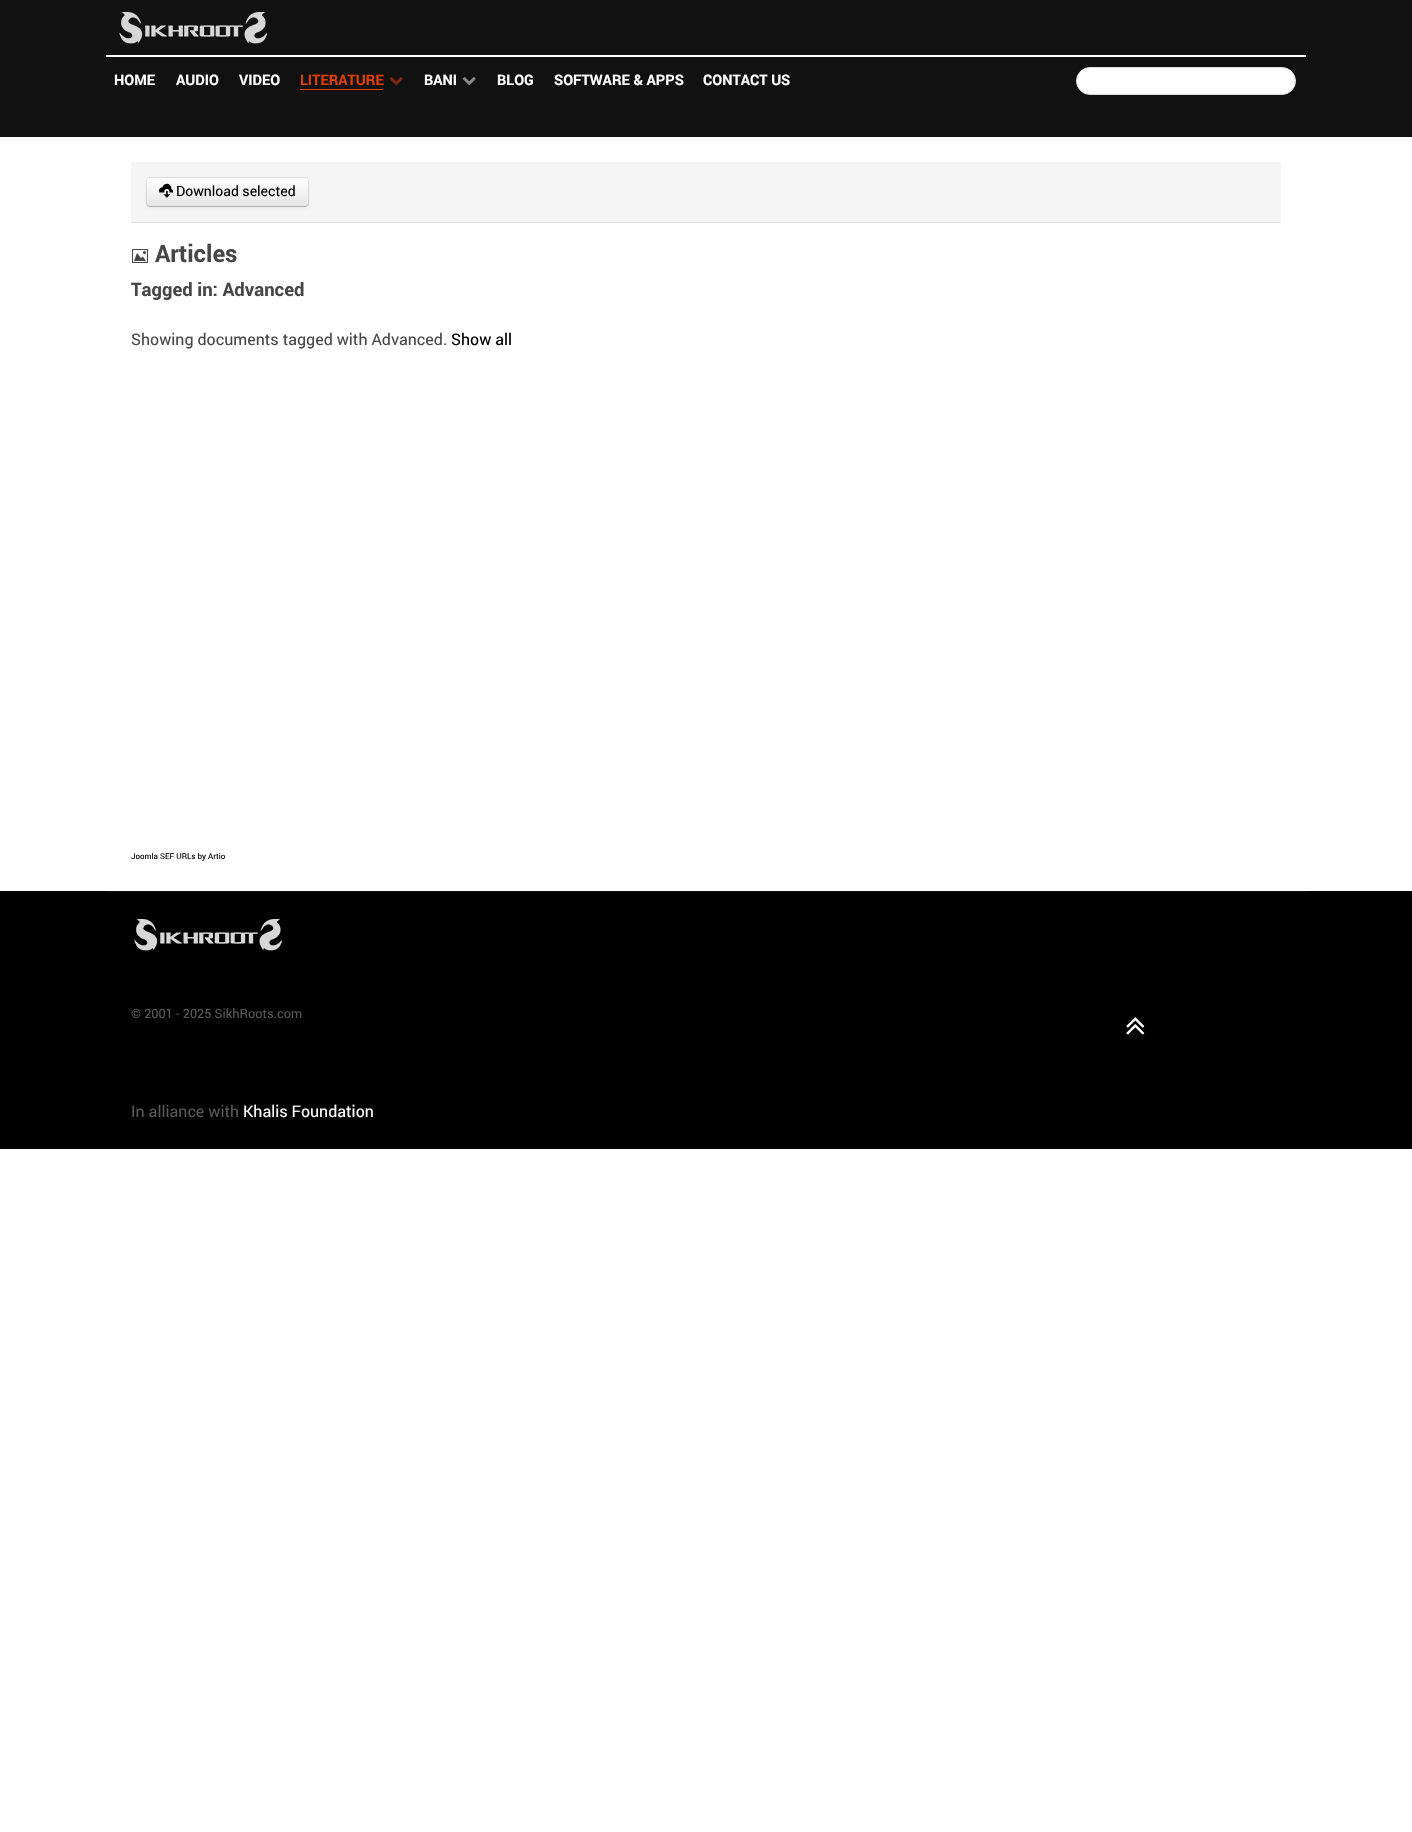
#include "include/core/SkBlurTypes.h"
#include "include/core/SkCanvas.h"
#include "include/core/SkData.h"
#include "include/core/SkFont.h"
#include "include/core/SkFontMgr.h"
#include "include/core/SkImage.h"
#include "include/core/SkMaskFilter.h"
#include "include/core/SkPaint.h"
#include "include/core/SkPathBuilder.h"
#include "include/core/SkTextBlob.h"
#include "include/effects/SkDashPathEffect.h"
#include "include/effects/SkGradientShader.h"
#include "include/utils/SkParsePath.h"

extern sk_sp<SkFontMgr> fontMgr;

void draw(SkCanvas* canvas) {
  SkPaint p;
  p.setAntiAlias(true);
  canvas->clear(SK_ColorWHITE);
  p.setColor(SkColorSetRGB(17, 17, 17));
  canvas->drawRect(SkRect::MakeLTRB(0, 0, 1412, 137), p);
  p.setColor(SK_ColorWHITE);
  canvas->drawRect(SkRect::MakeLTRB(106, 55, 1306, 57), p);
  canvas->drawImageRect(SkImages::DeferredFromEncodedData(SkData::MakeFromFileName("images/1.png")), SkRect::MakeLTRB(119, 12, 267, 44), SkSamplingOptions());
  p.setColor(SkColorSetRGB(227, 64, 0));
  canvas->drawRect(SkRect::MakeLTRB(300, 89, 383, 90), p);
  canvas->drawImageRect(SkImages::DeferredFromEncodedData(SkData::MakeFromFileName("images/2.png")), SkRect::MakeLTRB(389, 77, 403, 86), SkSamplingOptions());
  canvas->drawImageRect(SkImages::DeferredFromEncodedData(SkData::MakeFromFileName("images/3.png")), SkRect::MakeLTRB(462, 77, 476, 86), SkSamplingOptions());
  p.setColor(SK_ColorWHITE);
  canvas->drawRoundRect(SkRect::MakeLTRB(1076.5f, 67.5f, 1295.5f, 94.5f), 13.5f, 13.5f, p);
  p.setStyle(SkPaint::kStroke_Style);
  p.setStrokeWidth(1);
  p.setColor(SkColorSetRGB(223, 223, 223));
  canvas->drawRoundRect(SkRect::MakeLTRB(1076.5f, 67.5f, 1295.5f, 94.5f), 13.5f, 13.5f, p);
  p.setStyle(SkPaint::kFill_Style);
  p.setColor(SkColorSetRGB(245, 245, 245));
  canvas->drawRect(SkRect::MakeLTRB(131, 162, 1281, 222), p);
  p.setColor(SkColorSetRGB(225, 225, 225));
  canvas->drawRect(SkRect::MakeLTRB(131, 222, 1281, 223), p);
  p.setColor(SkColorSetARGB(13, 0, 0, 0));
  p.setMaskFilter(SkMaskFilter::MakeBlur(kNormal_SkBlurStyle, 1));
  canvas->drawRoundRect(SkRect::MakeLTRB(146, 178, 309, 208), 4, 4, p);
  p.setMaskFilter(nullptr);
  p.setColor(SkColorSetRGB(245, 245, 245));
  canvas->drawRoundRect(SkRect::MakeLTRB(146, 177, 309, 207), 4, 4, p);
  canvas->save();
  canvas->clipPath(SkPathBuilder().moveTo(150, 177).lineTo(305, 177).cubicTo(307, 177, 309, 179, 309, 181).lineTo(309, 203).cubicTo(309, 205, 307, 207, 305, 207).lineTo(150, 207).cubicTo(148, 207, 146, 205, 146, 203).lineTo(146, 181).cubicTo(146, 179, 148, 177, 150, 177).close().detach(), true);
  {
    const SkColor colors[] = {SK_ColorWHITE, SkColorSetRGB(230, 230, 230)};
    const float stops[] = {0, 1};
    const SkPoint ends[] = {{228, 178}, {228, 206}};
    p.setShader(SkGradientShader::MakeLinear(ends, colors, stops, 2, SkTileMode::kClamp));
    p.setAlpha(255);
  }
  canvas->drawRect(SkRect::MakeLTRB(146, 178, 309, 206), p);
  canvas->restore();
  p.setStyle(SkPaint::kStroke_Style);
  p.setShader(nullptr);
  p.setColor(SkColorSetRGB(179, 179, 179));
  canvas->drawPath(SkPathBuilder().moveTo(307.5f, 205.5f).cubicTo(307, 206, 306, 206.5f, 305, 206.5f).lineTo(150, 206.5f).cubicTo(149, 206.5f, 148, 206, 147.5f, 205.5f).detach(), p);
  p.setColor(SkColorSetARGB(26, 0, 0, 0));
  canvas->drawPath(SkPathBuilder().moveTo(147.5f, 205.5f).cubicTo(145.5f, 203.5f, 146.5f, 195, 146.5f, 192).lineTo(146.5f, 184.5f).cubicTo(146.5f, 182, 146, 177.5f, 150, 177.5f).lineTo(305, 177.5f).cubicTo(309, 177.5f, 308.5f, 182, 308.5f, 184.5f).lineTo(308.5f, 192).cubicTo(308.5f, 195, 309.5f, 203.5f, 307.5f, 205.5f).detach(), p);
  canvas->drawImageRect(SkImages::DeferredFromEncodedData(SkData::MakeFromFileName("images/4.png")), SkRect::MakeLTRB(159, 183, 173, 198), SkSamplingOptions());
  canvas->drawImageRect(SkImages::DeferredFromEncodedData(SkData::MakeFromFileName("images/5.png")), SkRect::MakeLTRB(132, 249, 148, 263), SkSamplingOptions());
  p.setStyle(SkPaint::kFill_Style);
  p.setColor(SK_ColorBLACK);
  canvas->drawRect(SkRect::MakeLTRB(0, 891, 1412, 1149), p);
  p.setColor(SkColorSetRGB(18, 18, 18));
  canvas->drawRect(SkRect::MakeLTRB(106, 891, 1306, 892), p);
  canvas->drawImageRect(SkImages::DeferredFromEncodedData(SkData::MakeFromFileName("images/6.png")), SkRect::MakeLTRB(134, 919, 282, 951), SkSamplingOptions());
  canvas->drawImageRect(SkImages::DeferredFromEncodedData(SkData::MakeFromFileName("images/7.png")), SkRect::MakeLTRB(1126, 1017, 1145, 1035), SkSamplingOptions());
  SkFont font1(fontMgr->matchFamilyStyle("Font", SkFontStyle::Bold()), 14.5f);
  font1.setSubpixel(true);
  p.setColor(SK_ColorWHITE);
  canvas->drawString("HOME", 114, 85, font1, p);
  canvas->drawString("AUDIO", 176, 85, font1, p);
  canvas->drawString("VIDEO", 239, 85, font1, p);
  p.setColor(SkColorSetRGB(227, 64, 0));
  canvas->drawString("LITERATURE", 300, 85, font1, p);
  p.setColor(SK_ColorWHITE);
  canvas->drawString("BANI", 424, 85, font1, p);
  canvas->drawString("BLOG", 497, 85, font1, p);
  canvas->drawString("SOFTWARE & APPS", 554, 85, font1, p);
  canvas->drawString("CONTACT US", 703, 85, font1, p);
  SkFont font2(fontMgr->matchFamilyStyle("Font", SkFontStyle::Normal()), 14);
  font2.setSubpixel(true);
  p.setColor(SK_ColorBLACK);
  canvas->drawString("Download selected", 176, 196, font2, p);
  SkFont font3(fontMgr->matchFamilyStyle("Font", SkFontStyle::Bold()), 24);
  font3.setSubpixel(true);
  p.setColor(SkColorSetRGB(71, 71, 71));
  canvas->drawString("Articles", 155, 262, font3, p);
  SkFont font4(fontMgr->matchFamilyStyle("Font", SkFontStyle::Bold()), 18.5f);
  font4.setSubpixel(true);
  canvas->drawString("Tagged in: Advanced", 131, 296, font4, p);
  SkFont font5(fontMgr->matchFamilyStyle("Font", SkFontStyle::Normal()), 16);
  font5.setSubpixel(true);
  canvas->drawString("Showing documents tagged with Advanced.", 131, 345, font5, p);
  p.setColor(SK_ColorBLACK);
  canvas->drawString("Show all", 451, 345, font5, p);
  SkFont font6(fontMgr->matchFamilyStyle("Font", SkFontStyle::Normal()), 8);
  font6.setSubpixel(true);
  canvas->drawString("Joomla SEF URLs by Artio", 131, 859, font6, p);
  SkFont font7(fontMgr->matchFamilyStyle("Font", SkFontStyle::Normal()), 12.75f);
  font7.setSubpixel(true);
  p.setColor(SkColorSetRGB(88, 88, 88));
  canvas->drawString("© 2001 - 2025 SikhRoots.com", 131, 1018, font7, p);
  canvas->drawString("In alliance with", 131, 1117, font5, p);
  p.setColor(SK_ColorWHITE);
  canvas->drawString("Khalis Foundation", 243, 1117, font5, p);
}
